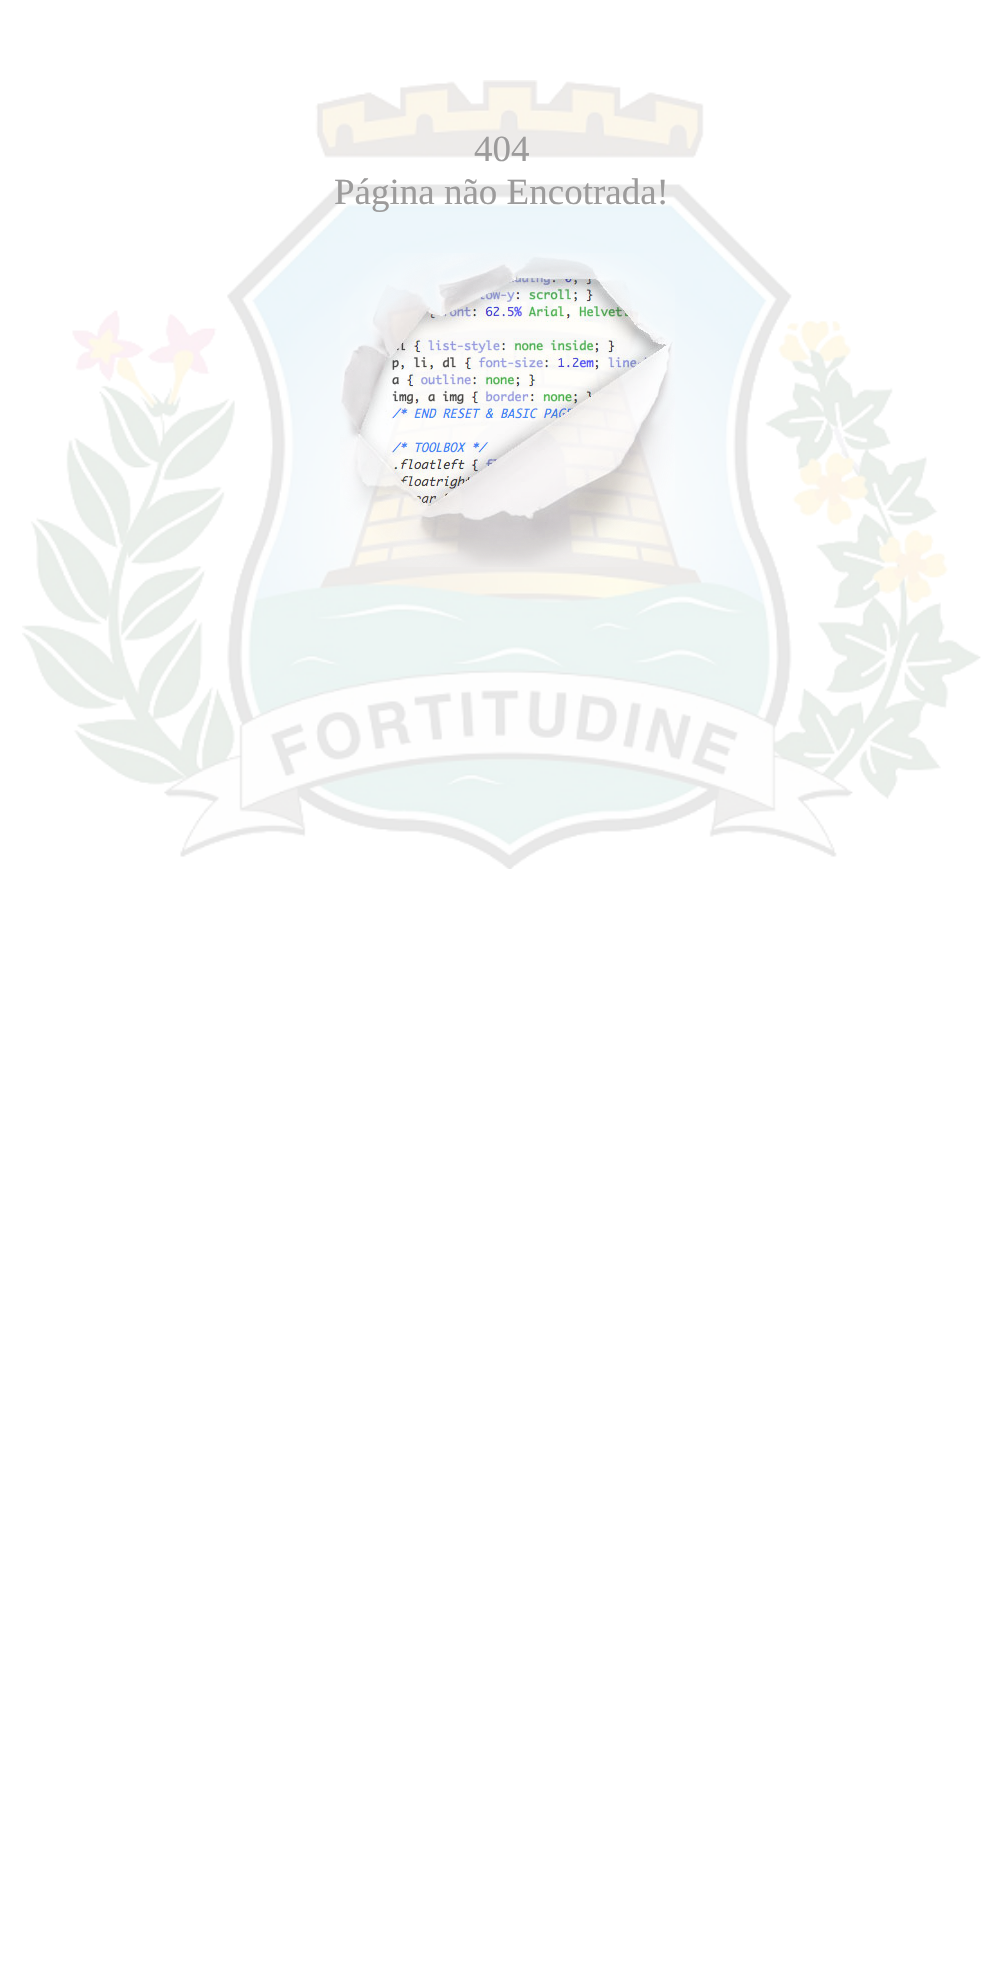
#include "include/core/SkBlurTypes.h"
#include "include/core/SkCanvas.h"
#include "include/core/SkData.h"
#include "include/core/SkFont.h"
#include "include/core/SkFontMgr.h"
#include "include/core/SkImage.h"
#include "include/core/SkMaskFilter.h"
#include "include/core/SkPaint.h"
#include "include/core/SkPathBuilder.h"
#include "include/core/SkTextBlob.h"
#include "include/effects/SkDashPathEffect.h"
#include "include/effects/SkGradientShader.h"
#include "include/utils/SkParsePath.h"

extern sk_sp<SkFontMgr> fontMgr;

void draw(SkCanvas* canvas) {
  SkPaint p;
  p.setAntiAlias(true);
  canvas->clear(SK_ColorWHITE);
  canvas->drawImageRect(SkImages::DeferredFromEncodedData(SkData::MakeFromFileName("images/1.png")), SkRect::MakeLTRB(22, 80, 981, 869), SkSamplingOptions());
  canvas->drawImageRect(SkImages::DeferredFromEncodedData(SkData::MakeFromFileName("images/2.png")), SkRect::MakeLTRB(340, 253, 675, 567), SkSamplingOptions());
  SkFont font1(fontMgr->matchFamilyStyle("Liberation Serif", SkFontStyle::Normal()), 37);
  font1.setSubpixel(true);
  p.setColor(SkColorSetRGB(156, 155, 155));
  canvas->drawString("404", 474, 161, font1, p);
  canvas->drawString("Página não Encotrada!", 334, 204, font1, p);
}
